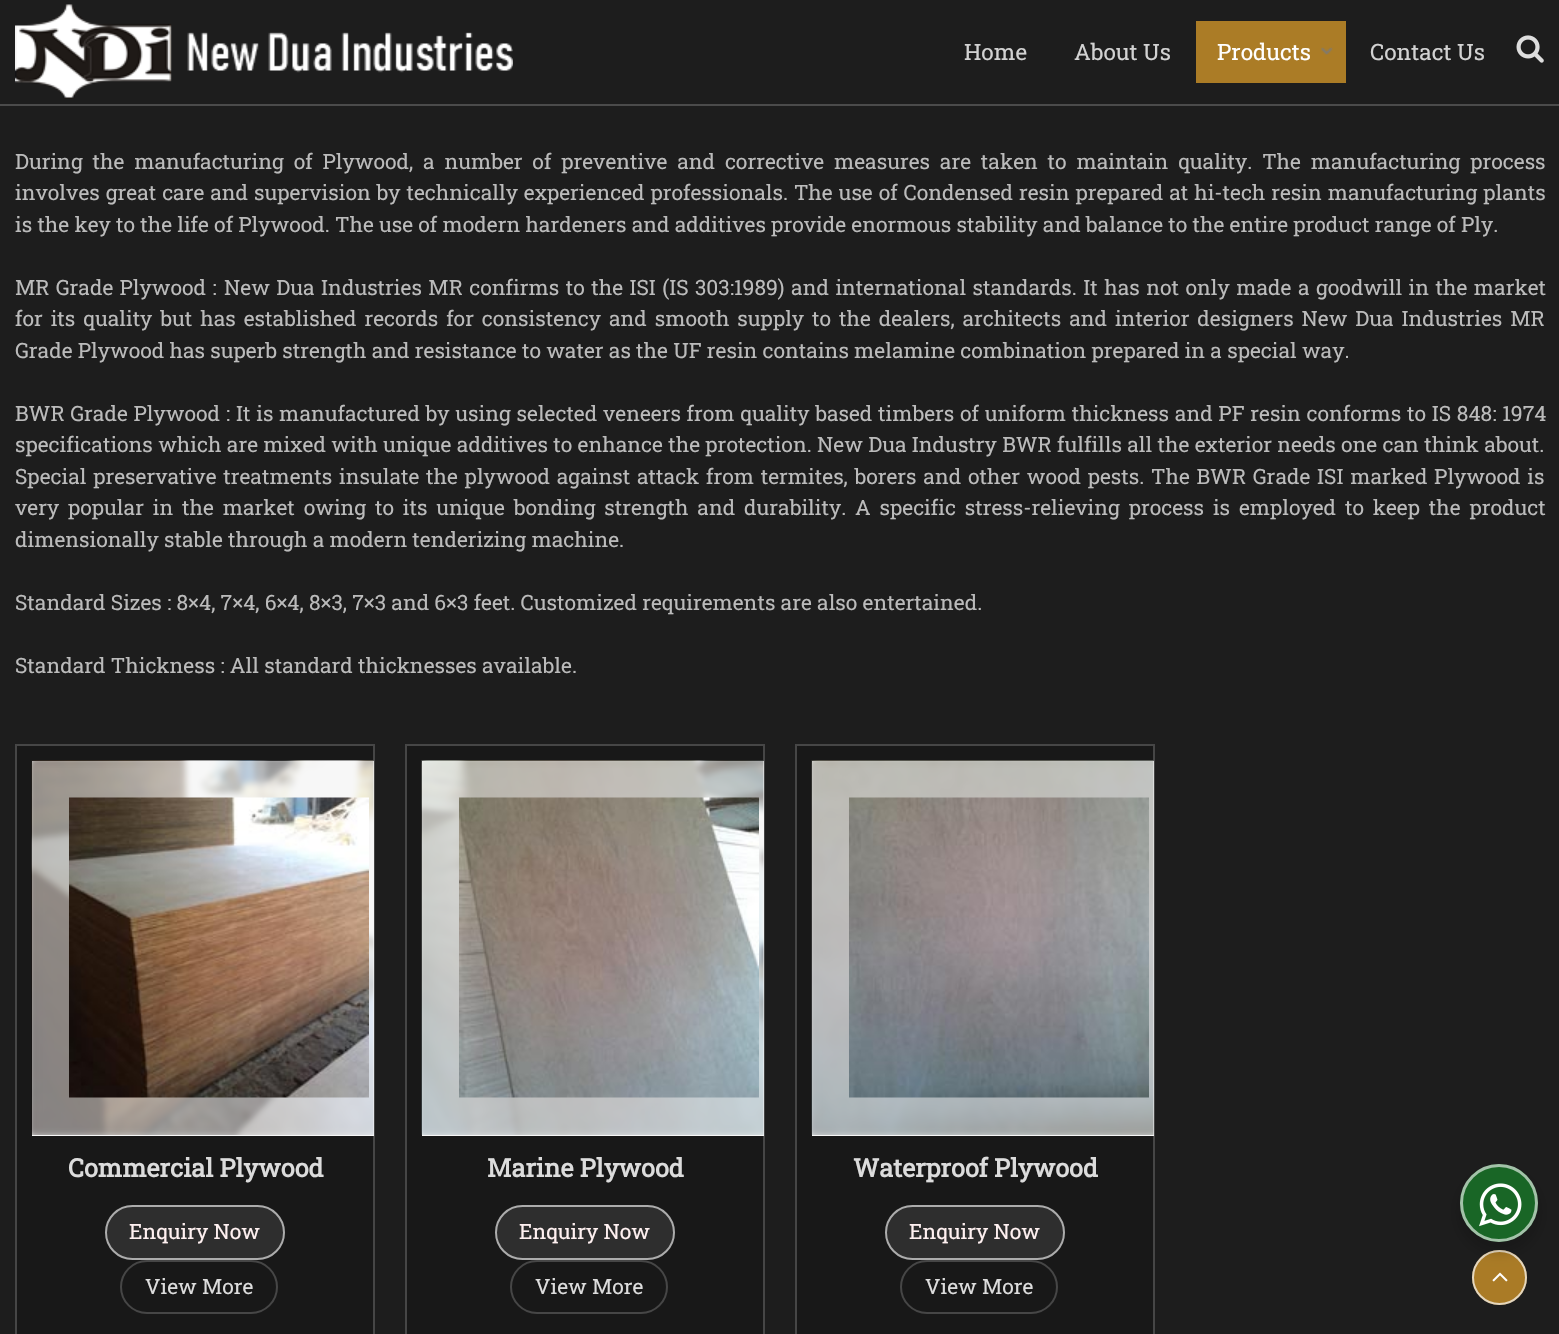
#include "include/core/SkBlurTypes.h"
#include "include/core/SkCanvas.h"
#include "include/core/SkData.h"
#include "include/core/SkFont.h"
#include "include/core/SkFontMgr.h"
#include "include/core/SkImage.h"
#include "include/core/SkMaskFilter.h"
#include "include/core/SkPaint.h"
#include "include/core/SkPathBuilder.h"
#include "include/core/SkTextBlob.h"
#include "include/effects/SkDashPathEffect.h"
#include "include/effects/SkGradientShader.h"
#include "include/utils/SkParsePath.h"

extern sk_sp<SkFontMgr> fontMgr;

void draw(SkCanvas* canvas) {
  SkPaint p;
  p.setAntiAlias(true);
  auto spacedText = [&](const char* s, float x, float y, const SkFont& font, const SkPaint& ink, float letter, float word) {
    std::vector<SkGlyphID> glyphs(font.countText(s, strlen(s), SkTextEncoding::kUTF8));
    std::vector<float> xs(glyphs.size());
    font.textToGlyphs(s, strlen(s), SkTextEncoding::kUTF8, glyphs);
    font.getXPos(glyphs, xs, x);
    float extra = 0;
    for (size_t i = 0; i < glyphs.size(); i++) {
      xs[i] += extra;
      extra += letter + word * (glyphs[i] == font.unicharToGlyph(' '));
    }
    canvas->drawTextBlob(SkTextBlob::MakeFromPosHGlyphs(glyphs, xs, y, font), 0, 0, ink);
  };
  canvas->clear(SkColorSetRGB(29, 29, 29));
  p.setColor(SkColorSetARGB(51, 255, 255, 255));
  canvas->drawRect(SkRect::MakeLTRB(0, 104, 1559, 106), p);
  canvas->drawImageRect(SkImages::DeferredFromEncodedData(SkData::MakeFromFileName("images/1.png")), SkRect::MakeLTRB(15, 4, 513, 99), SkSamplingOptions());
  p.setColor(SkColorSetRGB(171, 124, 38));
  canvas->drawRect(SkRect::MakeLTRB(1196, 21, 1346, 83), p);
  canvas->drawImageRect(SkImages::DeferredFromEncodedData(SkData::MakeFromFileName("images/2.png")), SkRect::MakeLTRB(1321, 47, 1333, 55), SkSamplingOptions());
  canvas->drawImageRect(SkImages::DeferredFromEncodedData(SkData::MakeFromFileName("images/3.png")), SkRect::MakeLTRB(1516, 35, 1544, 63), SkSamplingOptions());
  p.setColor(SkColorSetRGB(24, 24, 24));
  canvas->drawRect(SkRect::MakeLTRB(16, 745, 374, 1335), p);
  p.setStyle(SkPaint::kStroke_Style);
  p.setStrokeWidth(2);
  p.setColor(SkColorSetRGB(70, 70, 70));
  canvas->drawRect(SkRect::MakeLTRB(16, 745, 374, 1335), p);
  p.setStyle(SkPaint::kFill_Style);
  p.setColor(SK_ColorWHITE);
  canvas->drawRect(SkRect::MakeLTRB(32, 761, 374, 1136), p);
  canvas->drawImageRect(SkImages::DeferredFromEncodedData(SkData::MakeFromFileName("images/4.png")), SkRect::MakeLTRB(31, 760, 374, 1135), SkSamplingOptions());
  canvas->save();
  canvas->clipRect(SkRect::MakeLTRB(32, 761, 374, 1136));
  p.setColor(SkColorSetARGB(128, 255, 255, 255));
  p.setMaskFilter(SkMaskFilter::MakeBlur(kNormal_SkBlurStyle, 3));
  canvas->drawRect(SkRect::MakeLTRB(32, 761, 407, 1136), p);
  p.setMaskFilter(nullptr);
  canvas->restore();
  p.setColor(SkColorSetARGB(8, 0, 0, 0));
  canvas->drawRect(SkRect::MakeLTRB(32, 761, 374, 1136), p);
  canvas->drawImageRect(SkImages::DeferredFromEncodedData(SkData::MakeFromFileName("images/5.png")), SkRect::MakeLTRB(69, 797, 369, 1098), SkSamplingOptions());
  p.setColor(SkColorSetRGB(46, 46, 46));
  canvas->drawRoundRect(SkRect::MakeLTRB(105, 1205, 285, 1260), 27.5f, 27.5f, p);
  p.setStyle(SkPaint::kStroke_Style);
  p.setColor(SkColorSetARGB(153, 255, 255, 255));
  canvas->drawRoundRect(SkRect::MakeLTRB(106, 1206, 284, 1259), 26.5f, 26.5f, p);
  p.setColor(SkColorSetRGB(70, 70, 70));
  canvas->drawRoundRect(SkRect::MakeLTRB(121, 1261, 277, 1313), 26, 26, p);
  p.setStyle(SkPaint::kFill_Style);
  p.setColor(SkColorSetRGB(24, 24, 24));
  canvas->drawRect(SkRect::MakeLTRB(406, 745, 764, 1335), p);
  p.setStyle(SkPaint::kStroke_Style);
  p.setColor(SkColorSetRGB(70, 70, 70));
  canvas->drawRect(SkRect::MakeLTRB(406, 745, 764, 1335), p);
  p.setStyle(SkPaint::kFill_Style);
  p.setColor(SK_ColorWHITE);
  canvas->drawRect(SkRect::MakeLTRB(422, 761, 764, 1136), p);
  canvas->drawImageRect(SkImages::DeferredFromEncodedData(SkData::MakeFromFileName("images/6.png")), SkRect::MakeLTRB(421, 760, 764, 1135), SkSamplingOptions());
  canvas->save();
  canvas->clipRect(SkRect::MakeLTRB(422, 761, 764, 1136));
  p.setColor(SkColorSetARGB(128, 255, 255, 255));
  p.setMaskFilter(SkMaskFilter::MakeBlur(kNormal_SkBlurStyle, 3));
  canvas->drawRect(SkRect::MakeLTRB(422, 761, 797, 1136), p);
  p.setMaskFilter(nullptr);
  canvas->restore();
  p.setColor(SkColorSetARGB(8, 0, 0, 0));
  canvas->drawRect(SkRect::MakeLTRB(422, 761, 764, 1136), p);
  canvas->drawImageRect(SkImages::DeferredFromEncodedData(SkData::MakeFromFileName("images/7.png")), SkRect::MakeLTRB(459, 797, 759, 1098), SkSamplingOptions());
  p.setColor(SkColorSetRGB(46, 46, 46));
  canvas->drawRoundRect(SkRect::MakeLTRB(495, 1205, 675, 1260), 27.5f, 27.5f, p);
  p.setStyle(SkPaint::kStroke_Style);
  p.setColor(SkColorSetARGB(153, 255, 255, 255));
  canvas->drawRoundRect(SkRect::MakeLTRB(496, 1206, 674, 1259), 26.5f, 26.5f, p);
  p.setColor(SkColorSetRGB(70, 70, 70));
  canvas->drawRoundRect(SkRect::MakeLTRB(511, 1261, 667, 1313), 26, 26, p);
  p.setStyle(SkPaint::kFill_Style);
  p.setColor(SkColorSetRGB(24, 24, 24));
  canvas->drawRect(SkRect::MakeLTRB(796, 745, 1154, 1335), p);
  p.setStyle(SkPaint::kStroke_Style);
  p.setColor(SkColorSetRGB(70, 70, 70));
  canvas->drawRect(SkRect::MakeLTRB(796, 745, 1154, 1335), p);
  p.setStyle(SkPaint::kFill_Style);
  p.setColor(SK_ColorWHITE);
  canvas->drawRect(SkRect::MakeLTRB(812, 761, 1154, 1136), p);
  canvas->drawImageRect(SkImages::DeferredFromEncodedData(SkData::MakeFromFileName("images/8.png")), SkRect::MakeLTRB(811, 760, 1154, 1135), SkSamplingOptions());
  canvas->save();
  canvas->clipRect(SkRect::MakeLTRB(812, 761, 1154, 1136));
  p.setColor(SkColorSetARGB(128, 255, 255, 255));
  p.setMaskFilter(SkMaskFilter::MakeBlur(kNormal_SkBlurStyle, 3));
  canvas->drawRect(SkRect::MakeLTRB(812, 761, 1187, 1136), p);
  p.setMaskFilter(nullptr);
  canvas->restore();
  p.setColor(SkColorSetARGB(8, 0, 0, 0));
  canvas->drawRect(SkRect::MakeLTRB(812, 761, 1154, 1136), p);
  canvas->drawImageRect(SkImages::DeferredFromEncodedData(SkData::MakeFromFileName("images/9.png")), SkRect::MakeLTRB(849, 797, 1149, 1098), SkSamplingOptions());
  p.setColor(SkColorSetRGB(46, 46, 46));
  canvas->drawRoundRect(SkRect::MakeLTRB(885, 1205, 1065, 1260), 27.5f, 27.5f, p);
  p.setStyle(SkPaint::kStroke_Style);
  p.setColor(SkColorSetARGB(153, 255, 255, 255));
  canvas->drawRoundRect(SkRect::MakeLTRB(886, 1206, 1064, 1259), 26.5f, 26.5f, p);
  p.setColor(SkColorSetRGB(70, 70, 70));
  canvas->drawRoundRect(SkRect::MakeLTRB(901, 1261, 1057, 1313), 26, 26, p);
  p.setStyle(SkPaint::kFill_Style);
  p.setColor(SkColorSetRGB(170, 123, 38));
  canvas->drawCircle(1499.5f, 1277.5f, 27.5f, p);
  p.setStyle(SkPaint::kStroke_Style);
  p.setColor(SkColorSetARGB(179, 253, 253, 253));
  canvas->drawCircle(1499.5f, 1277.5f, 26.5f, p);
  canvas->drawImageRect(SkImages::DeferredFromEncodedData(SkData::MakeFromFileName("images/11.png")), SkRect::MakeLTRB(1492, 1272, 1508, 1282), SkSamplingOptions());
  p.setStyle(SkPaint::kFill_Style);
  p.setColor(SkColorSetARGB(36, 0, 0, 0));
  p.setMaskFilter(SkMaskFilter::MakeBlur(kNormal_SkBlurStyle, 6));
  canvas->drawRoundRect(SkRect::MakeLTRB(1457, 1170, 1541, 1254), 42, 42, p);
  p.setMaskFilter(nullptr);
  p.setColor(SkColorSetRGB(25, 102, 38));
  canvas->drawCircle(1499, 1203, 39, p);
  p.setStyle(SkPaint::kStroke_Style);
  p.setStrokeWidth(3);
  p.setColor(SkColorSetARGB(153, 255, 255, 255));
  canvas->drawCircle(1499, 1203, 37.5f, p);
  canvas->drawImageRect(SkImages::DeferredFromEncodedData(SkData::MakeFromFileName("images/10.png")), SkRect::MakeLTRB(1479, 1183, 1522, 1227), SkSamplingOptions());
  SkFont font1(fontMgr->matchFamilyStyle("Roboto Slab", SkFontStyle::Normal()), 22.5f);
  font1.setSubpixel(true);
  p.setStyle(SkPaint::kFill_Style);
  p.setColor(SkColorSetRGB(210, 210, 210));
  canvas->drawString("Home", 964, 60, font1, p);
  canvas->drawString("About Us", 1074, 60, font1, p);
  p.setColor(SK_ColorWHITE);
  canvas->drawString("Products", 1217, 60, font1, p);
  p.setColor(SkColorSetRGB(210, 210, 210));
  canvas->drawString("Contact Us", 1370, 60, font1, p);
  SkFont font2(fontMgr->matchFamilyStyle("Roboto Slab", SkFontStyle::Normal()), 21);
  font2.setSubpixel(true);
  p.setColor(SkColorSetRGB(187, 187, 187));
  spacedText("During the manufacturing of Plywood, a number of preventive and corrective measures are taken to maintain quality. The manufacturing process", 15, 169, font2, p, 0, 4.6f);
  spacedText("involves great care and supervision by technically experienced professionals. The use of Condensed resin prepared at hi-tech resin manufacturing plants", 15, 200, font2, p, 0, 0.7f);
  canvas->drawString("is the key to the life of Plywood. The use of modern hardeners and additives provide enormous stability and balance to the entire product range of Ply.", 15, 232, font2, p);
  spacedText("MR Grade Plywood :", 15, 295, font2, p, 0, 1);
  spacedText("New Dua Industries MR confirms to the ISI (IS 303:1989) and international standards. It has not only made a goodwill in the market", 224, 295, font2, p, 0, 1.25f);
  spacedText("for its quality but has established records for consistency and smooth supply to the dealers, architects and interior designers New Dua Industries MR", 15, 326, font2, p, 0, 2.7f);
  canvas->drawString("Grade Plywood has superb strength and resistance to water as the UF resin contains melamine combination prepared in a special way.", 15, 358, font2, p);
  spacedText("BWR Grade Plywood :", 15, 421, font2, p, 0, 0.5f);
  spacedText("It is manufactured by using selected veneers from quality based timbers of uniform thickness and PF resin conforms to IS 848: 1974", 236, 421, font2, p, 0, 0.5f);
  spacedText("specifications which are mixed with unique additives to enhance the protection. New Dua Industry BWR fulfills all the exterior needs one can think about.", 15, 452, font2, p, 0, 0.1f);
  spacedText("Special preservative treatments insulate the plywood against attack from termites, borers and other wood pests. The BWR Grade ISI marked Plywood is", 15, 484, font2, p, 0, 1.5f);
  spacedText("very popular in the market owing to its unique bonding strength and durability. A specific stress-relieving process is employed to keep the product", 15, 515, font2, p, 0, 3.6f);
  canvas->drawString("dimensionally stable through a modern tenderizing machine.", 15, 547, font2, p);
  canvas->drawString("Standard Sizes : 8×4, 7×4, 6×4, 8×3, 7×3 and 6×3 feet. Customized requirements are also entertained.", 15, 610, font2, p);
  canvas->drawString("Standard Thickness : All standard thicknesses available.", 15, 673, font2, p);
  SkFont font3(fontMgr->matchFamilyStyle("Roboto Slab", SkFontStyle::Bold()), 25.25f);
  font3.setSubpixel(true);
  p.setColor(SkColorSetRGB(220, 220, 220));
  canvas->drawString("Commercial Plywood", 68, 1177, font3, p);
  p.setColor(SkColorSetRGB(255, 241, 241));
  canvas->drawString("Enquiry Now", 129, 1239, font2, p);
  p.setColor(SkColorSetRGB(220, 220, 220));
  canvas->drawString("View More", 145, 1294, font2, p);
  canvas->drawString("Marine Plywood", 487, 1177, font3, p);
  p.setColor(SkColorSetRGB(255, 241, 241));
  canvas->drawString("Enquiry Now", 519, 1239, font2, p);
  p.setColor(SkColorSetRGB(220, 220, 220));
  canvas->drawString("View More", 535, 1294, font2, p);
  canvas->drawString("Waterproof Plywood", 853, 1177, font3, p);
  p.setColor(SkColorSetRGB(255, 241, 241));
  canvas->drawString("Enquiry Now", 909, 1239, font2, p);
  p.setColor(SkColorSetRGB(220, 220, 220));
  canvas->drawString("View More", 925, 1294, font2, p);
}
